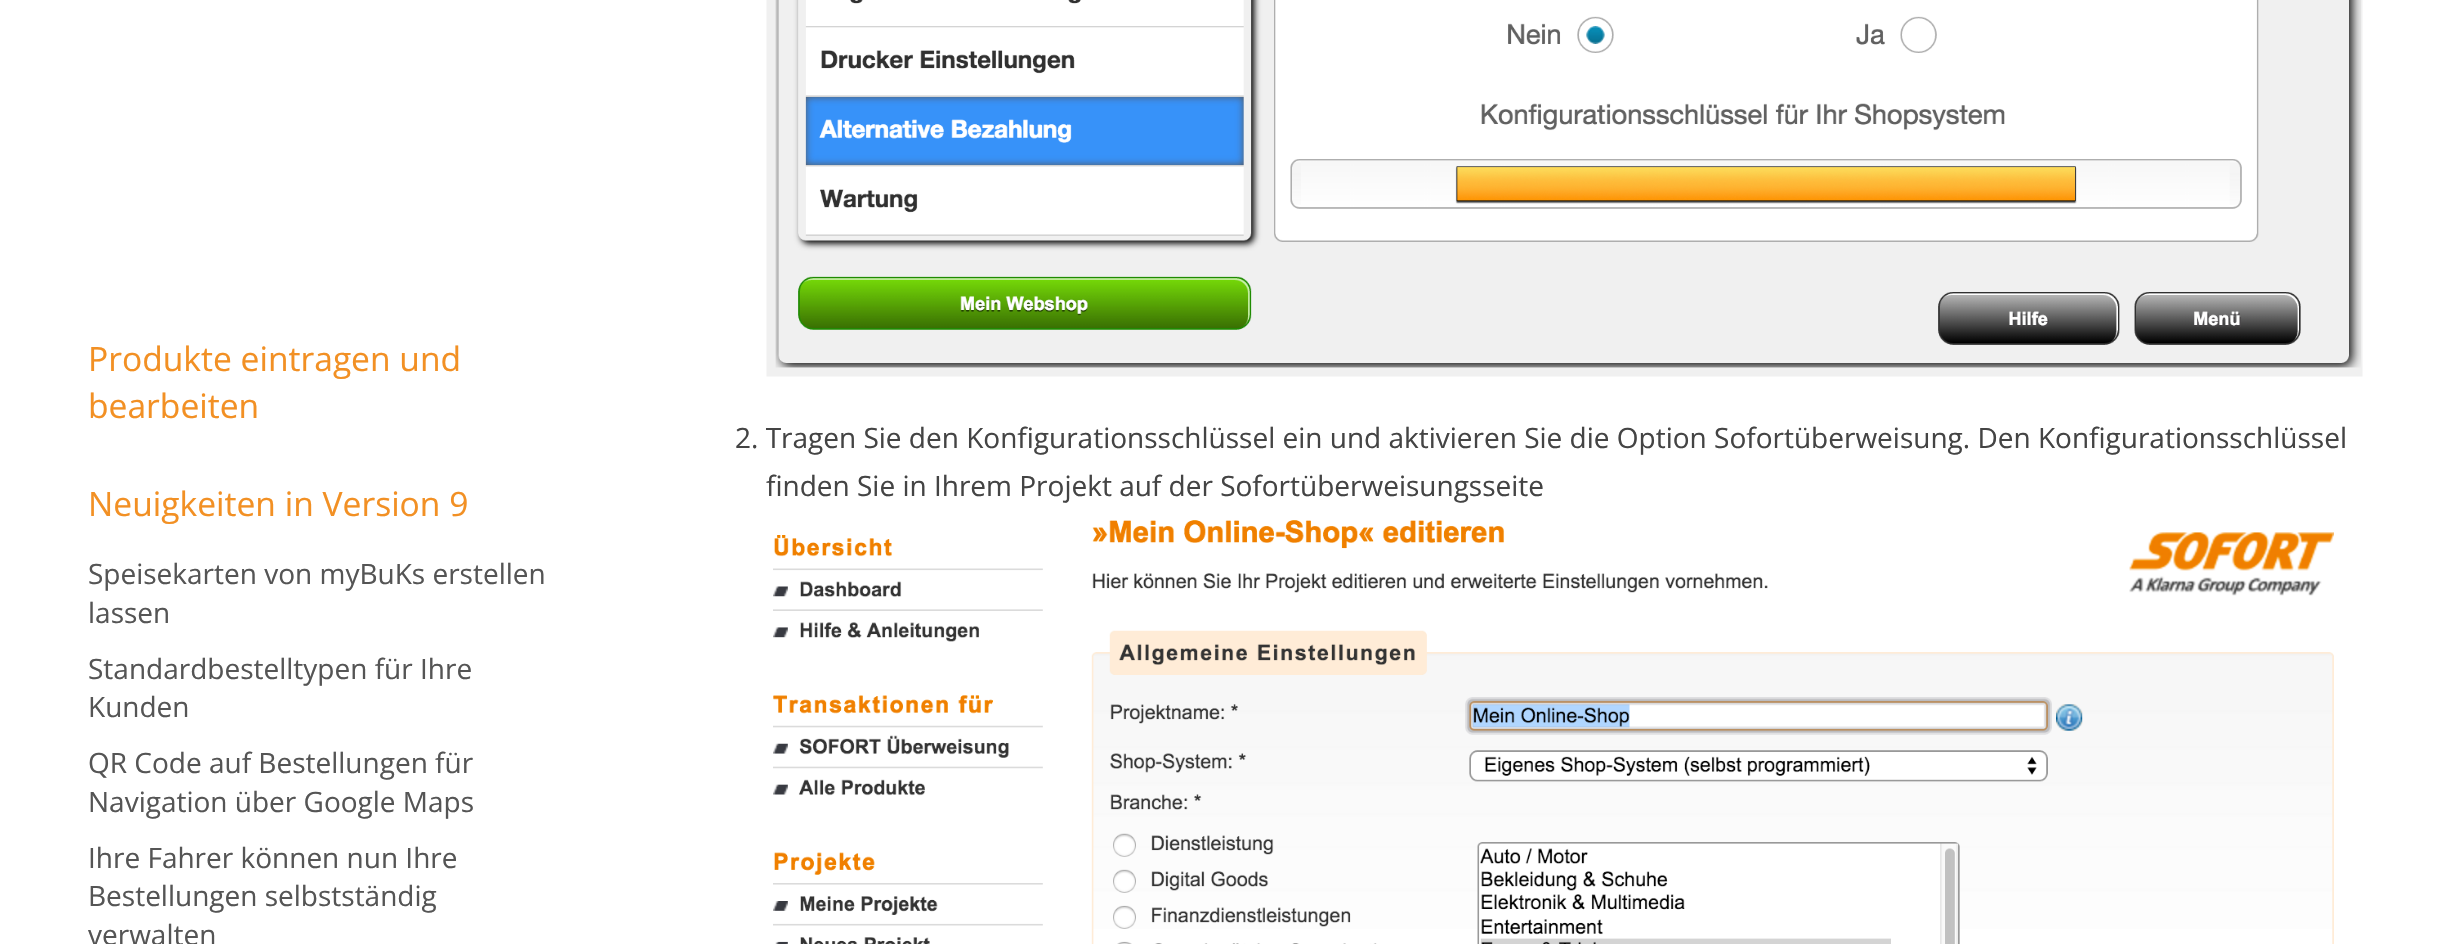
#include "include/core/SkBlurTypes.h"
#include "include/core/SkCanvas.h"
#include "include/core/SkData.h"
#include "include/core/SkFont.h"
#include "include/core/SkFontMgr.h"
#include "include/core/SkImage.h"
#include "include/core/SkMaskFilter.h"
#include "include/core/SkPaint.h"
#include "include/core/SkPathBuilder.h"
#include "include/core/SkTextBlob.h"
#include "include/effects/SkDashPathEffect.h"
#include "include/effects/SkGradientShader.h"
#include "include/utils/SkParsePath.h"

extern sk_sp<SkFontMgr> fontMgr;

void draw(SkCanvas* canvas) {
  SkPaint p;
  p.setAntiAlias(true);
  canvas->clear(SK_ColorWHITE);
  canvas->drawImageRect(SkImages::DeferredFromEncodedData(SkData::MakeFromFileName("images/1.png")), SkRect::MakeLTRB(766, 0, 2363, 377), SkSamplingOptions());
  canvas->drawImageRect(SkImages::DeferredFromEncodedData(SkData::MakeFromFileName("images/2.png")), SkRect::MakeLTRB(773, 520, 2334, 944), SkSamplingOptions());
  SkFont font1(fontMgr->matchFamilyStyle("Open Sans", SkFontStyle::Normal()), 33.6f);
  font1.setSubpixel(true);
  p.setColor(SkColorSetRGB(242, 144, 36));
  canvas->drawString("Produkte eintragen und", 88, 371, font1, p);
  canvas->drawString("bearbeiten", 88, 418, font1, p);
  canvas->drawString("Neuigkeiten in Version 9", 88, 516, font1, p);
  SkFont font2(fontMgr->matchFamilyStyle("Open Sans", SkFontStyle::Normal()), 28);
  font2.setSubpixel(true);
  p.setColor(SkColorSetRGB(85, 85, 85));
  canvas->drawString("Speisekarten von myBuKs erstellen", 88, 584, font2, p);
  canvas->drawString("lassen", 88, 623, font2, p);
  canvas->drawString("Standardbestelltypen für Ihre", 88, 679, font2, p);
  canvas->drawString("Kunden", 88, 717, font2, p);
  canvas->drawString("QR Code auf Bestellungen für", 88, 773, font2, p);
  canvas->drawString("Navigation über Google Maps", 88, 812, font2, p);
  canvas->drawString("Ihre Fahrer können nun Ihre", 88, 868, font2, p);
  canvas->drawString("Bestellungen selbstständig", 88, 906, font2, p);
  canvas->drawString("verwalten", 88, 945, font2, p);
  p.setColor(SkColorSetRGB(68, 68, 68));
  canvas->drawString("2. Tragen Sie den Konfigurationsschlüssel ein und aktivieren Sie die Option Sofortüberweisung. Den Konfigurationsschlüssel", 735, 448, font2, p);
  canvas->drawString("finden Sie in Ihrem Projekt auf der Sofortüberweisungsseite", 766, 496, font2, p);
}
